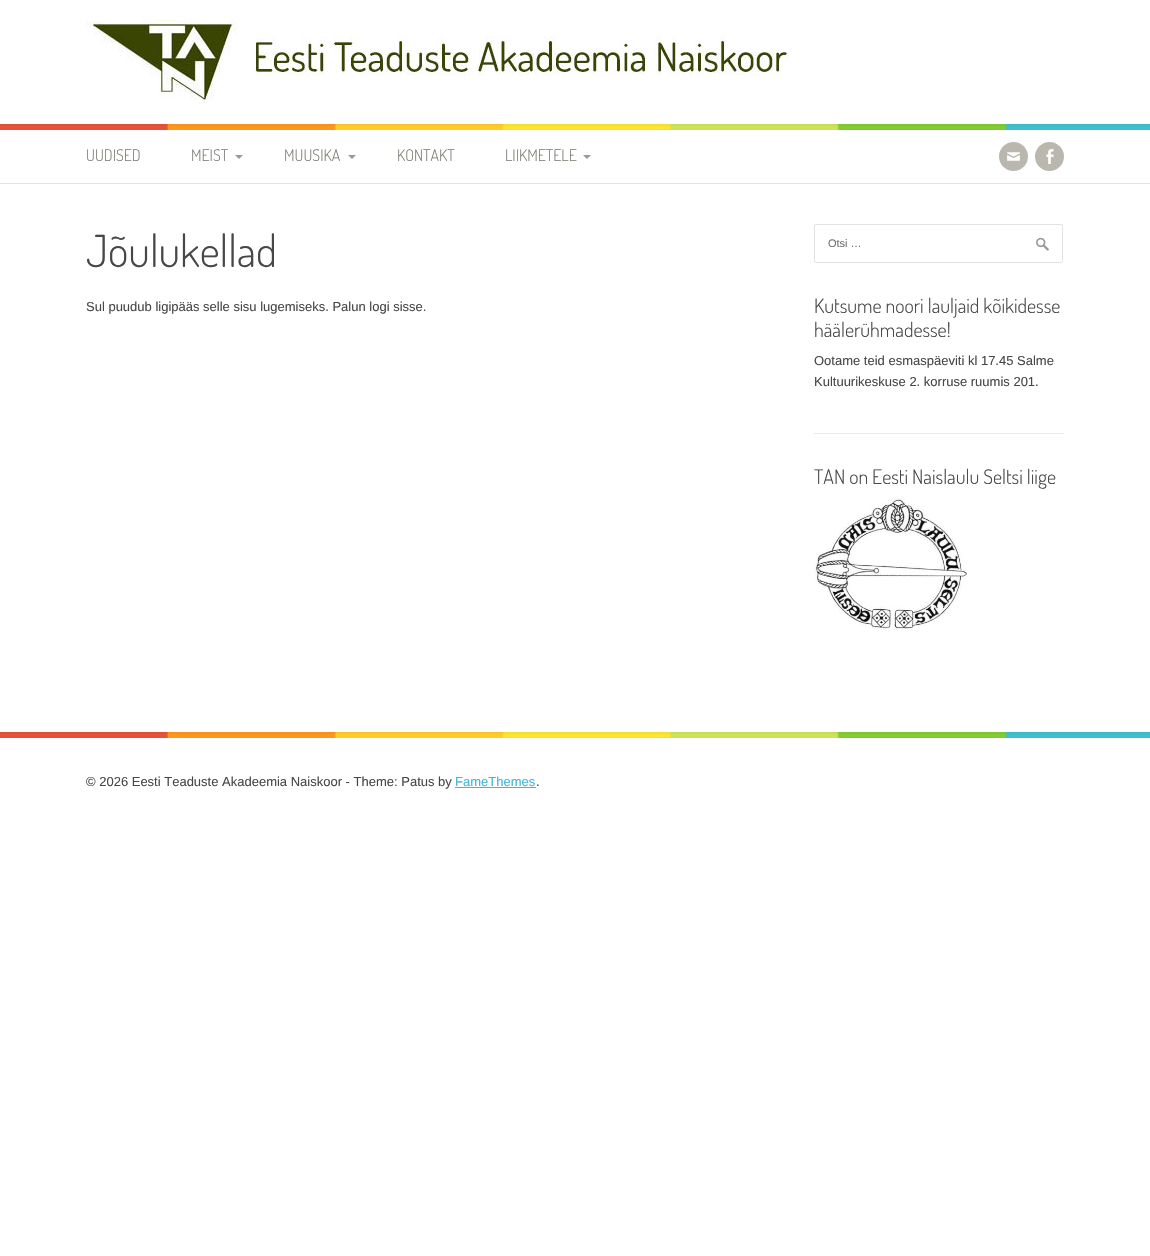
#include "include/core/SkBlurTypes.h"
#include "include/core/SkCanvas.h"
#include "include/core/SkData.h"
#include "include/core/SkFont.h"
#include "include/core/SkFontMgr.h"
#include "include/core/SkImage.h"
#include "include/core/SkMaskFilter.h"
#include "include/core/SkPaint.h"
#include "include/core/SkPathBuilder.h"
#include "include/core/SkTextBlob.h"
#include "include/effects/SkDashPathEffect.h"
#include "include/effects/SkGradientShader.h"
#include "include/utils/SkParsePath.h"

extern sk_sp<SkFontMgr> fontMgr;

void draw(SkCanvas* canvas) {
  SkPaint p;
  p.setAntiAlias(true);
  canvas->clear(SK_ColorWHITE);
  canvas->drawImageRect(SkImages::DeferredFromEncodedData(SkData::MakeFromFileName("images/1.png")), SkRect::MakeLTRB(86, 20, 790, 104), SkSamplingOptions());
  canvas->drawImageRect(SkImages::DeferredFromEncodedData(SkData::MakeFromFileName("images/2.png")), SkRect::MakeLTRB(0, 124, 1150, 130), SkSamplingOptions());
  p.setColor(SkColorSetRGB(226, 226, 226));
  canvas->drawRect(SkRect::MakeLTRB(0, 183, 1150, 184), p);
  p.setColor(SkColorSetRGB(153, 153, 153));
  canvas->drawPath(SkPathBuilder().moveTo(235, 155).lineTo(243, 155).lineTo(239, 159).close().detach(), p);
  canvas->drawPath(SkPathBuilder().moveTo(348, 155).lineTo(356, 155).lineTo(352, 159).close().detach(), p);
  canvas->drawPath(SkPathBuilder().moveTo(583, 155).lineTo(591, 155).lineTo(587, 159).close().detach(), p);
  p.setColor(SkColorSetRGB(186, 184, 174));
  canvas->drawCircle(1013.5f, 156.5f, 14.5f, p);
  canvas->drawImageRect(SkImages::DeferredFromEncodedData(SkData::MakeFromFileName("images/3.png")), SkRect::MakeLTRB(1007, 152, 1020, 161), SkSamplingOptions());
  canvas->drawCircle(1049.5f, 156.5f, 14.5f, p);
  canvas->drawImageRect(SkImages::DeferredFromEncodedData(SkData::MakeFromFileName("images/4.png")), SkRect::MakeLTRB(1046, 149, 1054, 164), SkSamplingOptions());
  canvas->drawImageRect(SkImages::DeferredFromEncodedData(SkData::MakeFromFileName("images/5.png")), SkRect::MakeLTRB(1036, 237, 1049, 251), SkSamplingOptions());
  p.setStyle(SkPaint::kStroke_Style);
  p.setStrokeWidth(1);
  p.setColor(SkColorSetRGB(226, 226, 226));
  canvas->drawRoundRect(SkRect::MakeLTRB(814.5f, 224.5f, 1062.5f, 262.5f), 1.5f, 1.5f, p);
  p.setStyle(SkPaint::kFill_Style);
  p.setColor(SkColorSetRGB(234, 234, 234));
  canvas->drawRect(SkRect::MakeLTRB(814, 433, 1064, 434), p);
  canvas->drawImageRect(SkImages::DeferredFromEncodedData(SkData::MakeFromFileName("images/6.png")), SkRect::MakeLTRB(814, 498, 967, 630), SkSamplingOptions());
  canvas->drawImageRect(SkImages::DeferredFromEncodedData(SkData::MakeFromFileName("images/2.png")), SkRect::MakeLTRB(0, 732, 1150, 738), SkSamplingOptions());
  p.setColor(SkColorSetRGB(65, 183, 216));
  canvas->drawRect(SkRect::MakeLTRB(455, 787, 536, 788), p);
  SkFont font1(fontMgr->matchFamilyStyle("Dosis", SkFontStyle(300, SkFontStyle::kNormal_Width, SkFontStyle::kUpright_Slant)), 16);
  font1.setSubpixel(true);
  p.setColor(SkColorSetRGB(126, 126, 117));
  canvas->drawString("UUDISED", 86, 161, font1, p);
  canvas->drawString("MEIST", 191, 161, font1, p);
  canvas->drawString("MUUSIKA", 284, 161, font1, p);
  canvas->drawString("KONTAKT", 397, 161, font1, p);
  canvas->drawString("LIIKMETELE", 505, 161, font1, p);
  SkFont font2(fontMgr->matchFamilyStyle("Dosis", SkFontStyle(300, SkFontStyle::kNormal_Width, SkFontStyle::kUpright_Slant)), 44);
  font2.setSubpixel(true);
  p.setColor(SkColorSetRGB(71, 71, 71));
  canvas->drawString("Jõulukellad", 86, 267, font2, p);
  SkFont font3(fontMgr->matchFamilyStyle("Liberation Sans", SkFontStyle::Normal()), 13);
  font3.setSubpixel(true);
  canvas->drawString("Sul puudub ligipääs selle sisu lugemiseks. Palun logi sisse.", 86, 311, font3, p);
  SkFont font4(fontMgr->matchFamilyStyle("Liberation Sans", SkFontStyle::Normal()), 11);
  font4.setSubpixel(true);
  p.setColor(SkColorSetRGB(117, 117, 117));
  canvas->drawString("Otsi …", 828, 247, font4, p);
  SkFont font5(fontMgr->matchFamilyStyle("Dosis", SkFontStyle(300, SkFontStyle::kNormal_Width, SkFontStyle::kUpright_Slant)), 20);
  font5.setSubpixel(true);
  p.setColor(SkColorSetRGB(71, 71, 71));
  canvas->drawString("Kutsume noori lauljaid kõikidesse", 814, 313, font5, p);
  canvas->drawString("häälerühmadesse!", 814, 337, font5, p);
  canvas->drawString("Ootame teid esmaspäeviti kl 17.45 Salme", 814, 365, font3, p);
  canvas->drawString("Kultuurikeskuse 2. korruse ruumis 201.", 814, 386, font3, p);
  canvas->drawString("TAN on Eesti Naislaulu Seltsi liige", 814, 484, font5, p);
  canvas->drawString("© 2026 Eesti Teaduste Akadeemia Naiskoor - Theme: Patus by", 86, 786, font3, p);
  p.setColor(SkColorSetRGB(65, 183, 216));
  canvas->drawString("FameThemes", 455, 786, font3, p);
  p.setColor(SkColorSetRGB(71, 71, 71));
  canvas->drawString(".", 536, 786, font3, p);
}
